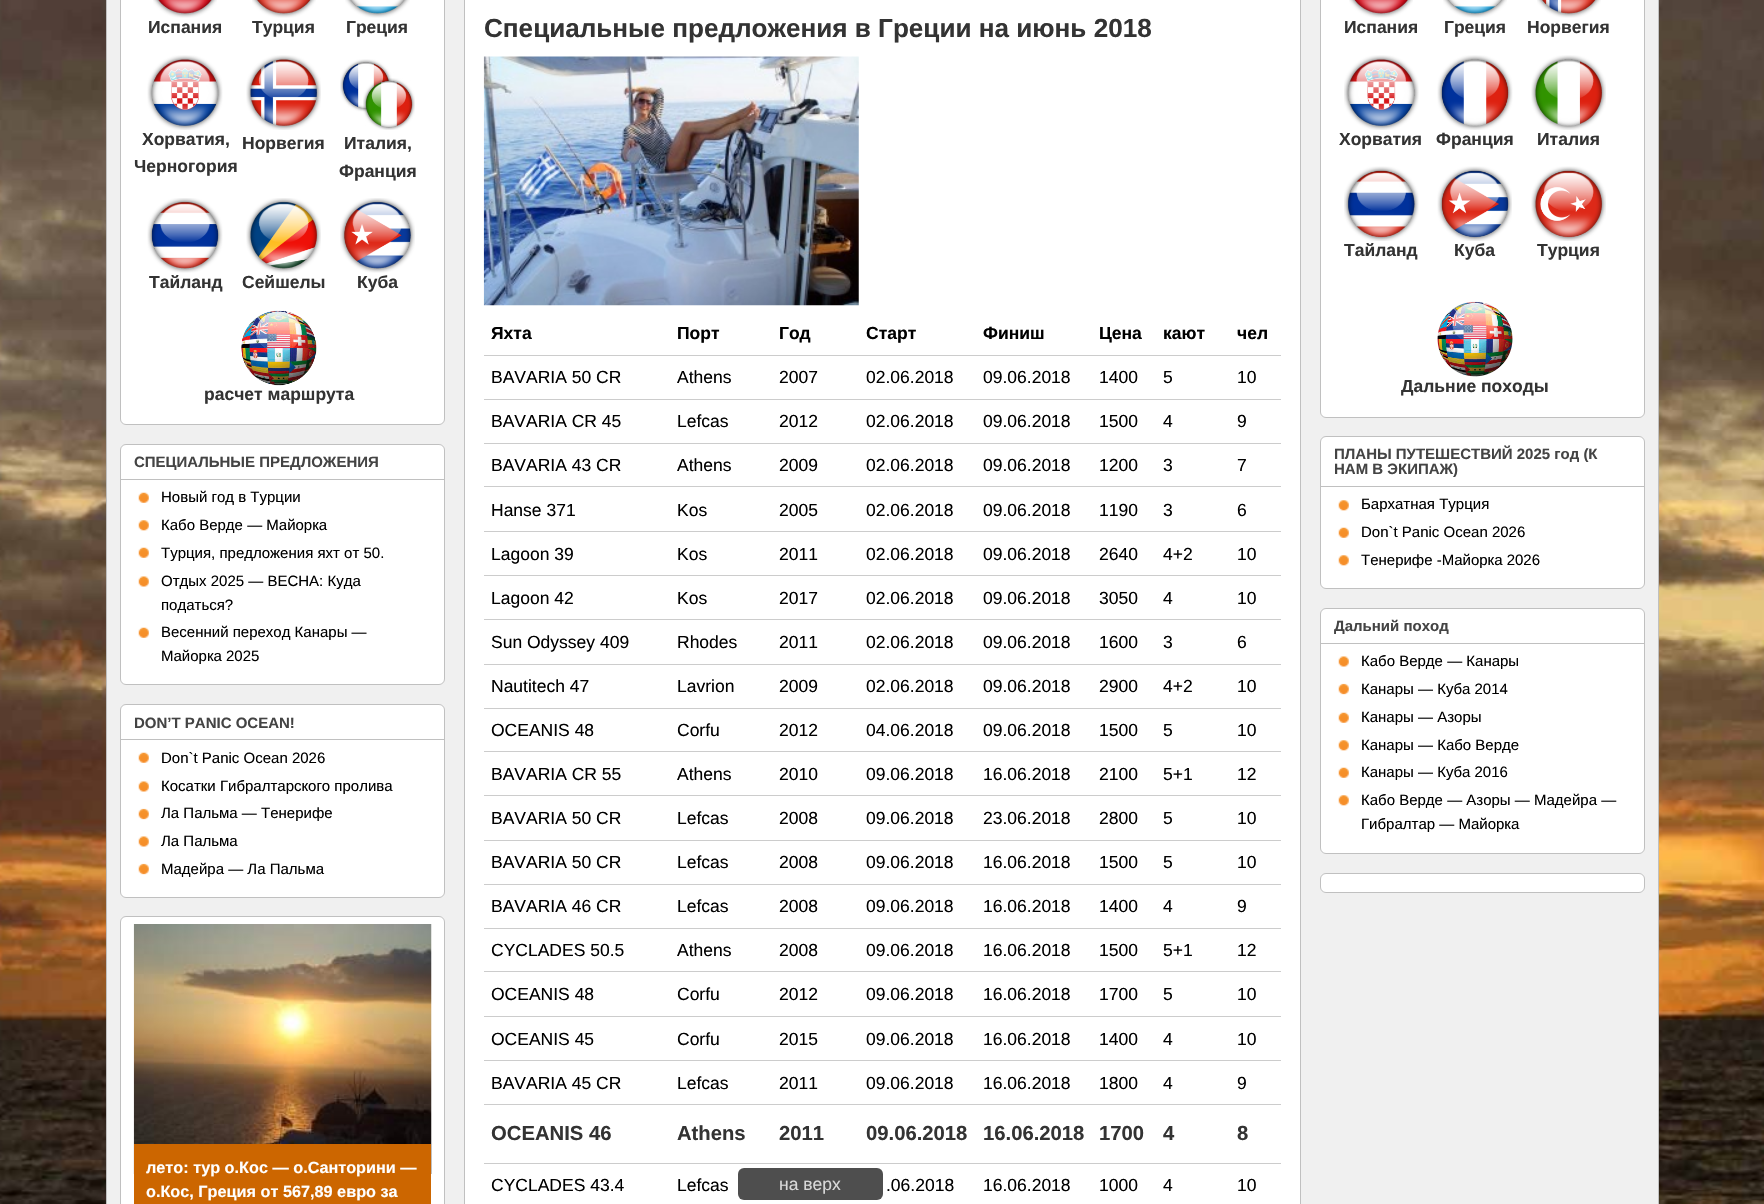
#include "include/core/SkBlurTypes.h"
#include "include/core/SkCanvas.h"
#include "include/core/SkData.h"
#include "include/core/SkFont.h"
#include "include/core/SkFontMgr.h"
#include "include/core/SkImage.h"
#include "include/core/SkMaskFilter.h"
#include "include/core/SkPaint.h"
#include "include/core/SkPathBuilder.h"
#include "include/core/SkTextBlob.h"
#include "include/effects/SkDashPathEffect.h"
#include "include/effects/SkGradientShader.h"
#include "include/utils/SkParsePath.h"

extern sk_sp<SkFontMgr> fontMgr;

void draw(SkCanvas* canvas) {
  SkPaint p;
  p.setAntiAlias(true);
  canvas->clear(SK_ColorWHITE);
  canvas->drawImageRect(SkImages::DeferredFromEncodedData(SkData::MakeFromFileName("images/1.png")), SkRect::MakeLTRB(0, 0, 1764, 1204), SkSamplingOptions());
  p.setColor(SkColorSetRGB(240, 240, 240));
  canvas->drawRect(SkRect::MakeLTRB(106.5f, -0.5f, 1658.5f, 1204.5f), p);
  p.setStyle(SkPaint::kStroke_Style);
  p.setStrokeWidth(1);
  p.setColor(SkColorSetRGB(192, 192, 192));
  canvas->drawRect(SkRect::MakeLTRB(106.5f, -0.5f, 1658.5f, 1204.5f), p);
  p.setStyle(SkPaint::kFill_Style);
  p.setColor(SK_ColorWHITE);
  canvas->drawRoundRect(SkRect::MakeLTRB(120.5f, -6.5f, 444.5f, 424.5f), 5.5f, 5.5f, p);
  p.setStyle(SkPaint::kStroke_Style);
  p.setColor(SkColorSetRGB(192, 192, 192));
  canvas->drawRoundRect(SkRect::MakeLTRB(120.5f, -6.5f, 444.5f, 424.5f), 5.5f, 5.5f, p);
  canvas->drawImageRect(SkImages::DeferredFromEncodedData(SkData::MakeFromFileName("images/2.png")), SkRect::MakeLTRB(153, 0, 217, 18), SkSamplingOptions());
  canvas->drawImageRect(SkImages::DeferredFromEncodedData(SkData::MakeFromFileName("images/3.png")), SkRect::MakeLTRB(252, 0, 316, 18), SkSamplingOptions());
  canvas->drawImageRect(SkImages::DeferredFromEncodedData(SkData::MakeFromFileName("images/4.png")), SkRect::MakeLTRB(345, 0, 410, 18), SkSamplingOptions());
  canvas->drawImageRect(SkImages::DeferredFromEncodedData(SkData::MakeFromFileName("images/5.png")), SkRect::MakeLTRB(147, 55, 223, 130), SkSamplingOptions());
  canvas->drawImageRect(SkImages::DeferredFromEncodedData(SkData::MakeFromFileName("images/6.png")), SkRect::MakeLTRB(246, 55, 321, 130), SkSamplingOptions());
  canvas->drawImageRect(SkImages::DeferredFromEncodedData(SkData::MakeFromFileName("images/7.png")), SkRect::MakeLTRB(340, 59, 415, 130), SkSamplingOptions());
  canvas->drawImageRect(SkImages::DeferredFromEncodedData(SkData::MakeFromFileName("images/8.png")), SkRect::MakeLTRB(147, 198, 223, 273), SkSamplingOptions());
  canvas->drawImageRect(SkImages::DeferredFromEncodedData(SkData::MakeFromFileName("images/9.png")), SkRect::MakeLTRB(246, 198, 321, 273), SkSamplingOptions());
  canvas->drawImageRect(SkImages::DeferredFromEncodedData(SkData::MakeFromFileName("images/10.png")), SkRect::MakeLTRB(340, 198, 415, 273), SkSamplingOptions());
  canvas->drawImageRect(SkImages::DeferredFromEncodedData(SkData::MakeFromFileName("images/11.png")), SkRect::MakeLTRB(241, 310, 317, 386), SkSamplingOptions());
  p.setStyle(SkPaint::kFill_Style);
  p.setColor(SK_ColorWHITE);
  canvas->drawRoundRect(SkRect::MakeLTRB(120.5f, 444.5f, 444.5f, 684.5f), 5.5f, 5.5f, p);
  p.setStyle(SkPaint::kStroke_Style);
  p.setColor(SkColorSetRGB(192, 192, 192));
  canvas->drawRoundRect(SkRect::MakeLTRB(120.5f, 444.5f, 444.5f, 684.5f), 5.5f, 5.5f, p);
  p.setStyle(SkPaint::kFill_Style);
  canvas->drawRect(SkRect::MakeLTRB(121, 479, 444, 480), p);
  canvas->drawImageRect(SkImages::DeferredFromEncodedData(SkData::MakeFromFileName("images/12.png")), SkRect::MakeLTRB(138, 492, 149, 503), SkSamplingOptions());
  canvas->drawImageRect(SkImages::DeferredFromEncodedData(SkData::MakeFromFileName("images/13.png")), SkRect::MakeLTRB(138, 520, 149, 531), SkSamplingOptions());
  canvas->drawImageRect(SkImages::DeferredFromEncodedData(SkData::MakeFromFileName("images/12.png")), SkRect::MakeLTRB(138, 547, 149, 558), SkSamplingOptions());
  canvas->drawImageRect(SkImages::DeferredFromEncodedData(SkData::MakeFromFileName("images/14.png")), SkRect::MakeLTRB(138, 576, 149, 587), SkSamplingOptions());
  canvas->drawImageRect(SkImages::DeferredFromEncodedData(SkData::MakeFromFileName("images/12.png")), SkRect::MakeLTRB(138, 627, 149, 638), SkSamplingOptions());
  p.setColor(SK_ColorWHITE);
  canvas->drawRoundRect(SkRect::MakeLTRB(120.5f, 704.5f, 444.5f, 897.5f), 5.5f, 5.5f, p);
  p.setStyle(SkPaint::kStroke_Style);
  p.setColor(SkColorSetRGB(192, 192, 192));
  canvas->drawRoundRect(SkRect::MakeLTRB(120.5f, 704.5f, 444.5f, 897.5f), 5.5f, 5.5f, p);
  p.setStyle(SkPaint::kFill_Style);
  canvas->drawRect(SkRect::MakeLTRB(121, 739, 444, 740), p);
  canvas->drawImageRect(SkImages::DeferredFromEncodedData(SkData::MakeFromFileName("images/12.png")), SkRect::MakeLTRB(138, 752, 149, 763), SkSamplingOptions());
  canvas->drawImageRect(SkImages::DeferredFromEncodedData(SkData::MakeFromFileName("images/14.png")), SkRect::MakeLTRB(138, 781, 149, 792), SkSamplingOptions());
  canvas->drawImageRect(SkImages::DeferredFromEncodedData(SkData::MakeFromFileName("images/15.png")), SkRect::MakeLTRB(138, 808, 149, 820), SkSamplingOptions());
  canvas->drawImageRect(SkImages::DeferredFromEncodedData(SkData::MakeFromFileName("images/14.png")), SkRect::MakeLTRB(138, 836, 149, 847), SkSamplingOptions());
  canvas->drawImageRect(SkImages::DeferredFromEncodedData(SkData::MakeFromFileName("images/15.png")), SkRect::MakeLTRB(138, 863, 149, 875), SkSamplingOptions());
  p.setColor(SK_ColorWHITE);
  canvas->drawRoundRect(SkRect::MakeLTRB(120.5f, 916.5f, 444.5f, 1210.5f), 5.5f, 5.5f, p);
  p.setStyle(SkPaint::kStroke_Style);
  p.setColor(SkColorSetRGB(192, 192, 192));
  canvas->drawRoundRect(SkRect::MakeLTRB(120.5f, 916.5f, 444.5f, 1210.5f), 5.5f, 5.5f, p);
  canvas->drawImageRect(SkImages::DeferredFromEncodedData(SkData::MakeFromFileName("images/16.png")), SkRect::MakeLTRB(133, 924, 432, 1174), SkSamplingOptions());
  p.setStyle(SkPaint::kFill_Style);
  p.setColor(SkColorSetRGB(204, 102, 0));
  canvas->drawRect(SkRect::MakeLTRB(134, 1144, 431, 1204), p);
  p.setColor(SK_ColorWHITE);
  canvas->drawRect(SkRect::MakeLTRB(464.5f, -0.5f, 1300.5f, 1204.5f), p);
  p.setStyle(SkPaint::kStroke_Style);
  p.setColor(SkColorSetRGB(192, 192, 192));
  canvas->drawRect(SkRect::MakeLTRB(464.5f, -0.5f, 1300.5f, 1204.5f), p);
  canvas->drawImageRect(SkImages::DeferredFromEncodedData(SkData::MakeFromFileName("images/17.png")), SkRect::MakeLTRB(483, 56, 859, 306), SkSamplingOptions());
  p.setStyle(SkPaint::kFill_Style);
  p.setColor(SkColorSetRGB(204, 204, 204));
  canvas->drawRect(SkRect::MakeLTRB(484, 355, 1281, 356), p);
  canvas->drawRect(SkRect::MakeLTRB(484, 399, 1281, 400), p);
  canvas->drawRect(SkRect::MakeLTRB(484, 443, 1281, 444), p);
  canvas->drawRect(SkRect::MakeLTRB(484, 486, 1281, 487), p);
  canvas->drawRect(SkRect::MakeLTRB(484, 531, 1281, 532), p);
  canvas->drawRect(SkRect::MakeLTRB(484, 575, 1281, 576), p);
  canvas->drawRect(SkRect::MakeLTRB(484, 619, 1281, 620), p);
  canvas->drawRect(SkRect::MakeLTRB(484, 664, 1281, 665), p);
  canvas->drawRect(SkRect::MakeLTRB(484, 708, 1281, 709), p);
  canvas->drawRect(SkRect::MakeLTRB(484, 751, 1281, 752), p);
  canvas->drawRect(SkRect::MakeLTRB(484, 795, 1281, 796), p);
  canvas->drawRect(SkRect::MakeLTRB(484, 840, 1281, 841), p);
  canvas->drawRect(SkRect::MakeLTRB(484, 884, 1281, 885), p);
  canvas->drawRect(SkRect::MakeLTRB(484, 928, 1281, 929), p);
  canvas->drawRect(SkRect::MakeLTRB(484, 971, 1281, 972), p);
  canvas->drawRect(SkRect::MakeLTRB(484, 1016, 1281, 1017), p);
  canvas->drawRect(SkRect::MakeLTRB(484, 1060, 1281, 1061), p);
  canvas->drawRect(SkRect::MakeLTRB(484, 1104, 1281, 1105), p);
  canvas->drawRect(SkRect::MakeLTRB(484, 1163, 1281, 1164), p);
  p.setColor(SK_ColorWHITE);
  canvas->drawRoundRect(SkRect::MakeLTRB(1320.5f, -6.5f, 1644.5f, 417.5f), 5.5f, 5.5f, p);
  p.setStyle(SkPaint::kStroke_Style);
  p.setColor(SkColorSetRGB(192, 192, 192));
  canvas->drawRoundRect(SkRect::MakeLTRB(1320.5f, -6.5f, 1644.5f, 417.5f), 5.5f, 5.5f, p);
  canvas->drawImageRect(SkImages::DeferredFromEncodedData(SkData::MakeFromFileName("images/18.png")), SkRect::MakeLTRB(1349, 0, 1413, 18), SkSamplingOptions());
  canvas->drawImageRect(SkImages::DeferredFromEncodedData(SkData::MakeFromFileName("images/19.png")), SkRect::MakeLTRB(1443, 0, 1507, 18), SkSamplingOptions());
  canvas->drawImageRect(SkImages::DeferredFromEncodedData(SkData::MakeFromFileName("images/20.png")), SkRect::MakeLTRB(1537, 0, 1601, 18), SkSamplingOptions());
  canvas->drawImageRect(SkImages::DeferredFromEncodedData(SkData::MakeFromFileName("images/21.png")), SkRect::MakeLTRB(1344, 55, 1419, 130), SkSamplingOptions());
  canvas->drawImageRect(SkImages::DeferredFromEncodedData(SkData::MakeFromFileName("images/22.png")), SkRect::MakeLTRB(1437, 55, 1513, 130), SkSamplingOptions());
  canvas->drawImageRect(SkImages::DeferredFromEncodedData(SkData::MakeFromFileName("images/23.png")), SkRect::MakeLTRB(1531, 55, 1606, 130), SkSamplingOptions());
  canvas->drawImageRect(SkImages::DeferredFromEncodedData(SkData::MakeFromFileName("images/24.png")), SkRect::MakeLTRB(1344, 166, 1419, 241), SkSamplingOptions());
  canvas->drawImageRect(SkImages::DeferredFromEncodedData(SkData::MakeFromFileName("images/25.png")), SkRect::MakeLTRB(1437, 166, 1512, 241), SkSamplingOptions());
  canvas->drawImageRect(SkImages::DeferredFromEncodedData(SkData::MakeFromFileName("images/26.png")), SkRect::MakeLTRB(1531, 166, 1606, 241), SkSamplingOptions());
  canvas->drawImageRect(SkImages::DeferredFromEncodedData(SkData::MakeFromFileName("images/27.png")), SkRect::MakeLTRB(1437, 301, 1513, 377), SkSamplingOptions());
  p.setStyle(SkPaint::kFill_Style);
  p.setColor(SK_ColorWHITE);
  canvas->drawRoundRect(SkRect::MakeLTRB(1320.5f, 436.5f, 1644.5f, 588.5f), 5.5f, 5.5f, p);
  p.setStyle(SkPaint::kStroke_Style);
  p.setColor(SkColorSetRGB(192, 192, 192));
  canvas->drawRoundRect(SkRect::MakeLTRB(1320.5f, 436.5f, 1644.5f, 588.5f), 5.5f, 5.5f, p);
  p.setStyle(SkPaint::kFill_Style);
  canvas->drawRect(SkRect::MakeLTRB(1321, 486, 1644, 487), p);
  canvas->drawImageRect(SkImages::DeferredFromEncodedData(SkData::MakeFromFileName("images/28.png")), SkRect::MakeLTRB(1338, 500, 1349, 511), SkSamplingOptions());
  canvas->drawImageRect(SkImages::DeferredFromEncodedData(SkData::MakeFromFileName("images/29.png")), SkRect::MakeLTRB(1338, 527, 1349, 538), SkSamplingOptions());
  canvas->drawImageRect(SkImages::DeferredFromEncodedData(SkData::MakeFromFileName("images/28.png")), SkRect::MakeLTRB(1338, 555, 1349, 566), SkSamplingOptions());
  p.setColor(SK_ColorWHITE);
  canvas->drawRoundRect(SkRect::MakeLTRB(1320.5f, 608.5f, 1644.5f, 853.5f), 5.5f, 5.5f, p);
  p.setStyle(SkPaint::kStroke_Style);
  p.setColor(SkColorSetRGB(192, 192, 192));
  canvas->drawRoundRect(SkRect::MakeLTRB(1320.5f, 608.5f, 1644.5f, 853.5f), 5.5f, 5.5f, p);
  p.setStyle(SkPaint::kFill_Style);
  canvas->drawRect(SkRect::MakeLTRB(1321, 643, 1644, 644), p);
  canvas->drawImageRect(SkImages::DeferredFromEncodedData(SkData::MakeFromFileName("images/30.png")), SkRect::MakeLTRB(1338, 656, 1349, 667), SkSamplingOptions());
  canvas->drawImageRect(SkImages::DeferredFromEncodedData(SkData::MakeFromFileName("images/31.png")), SkRect::MakeLTRB(1338, 683, 1349, 695), SkSamplingOptions());
  canvas->drawImageRect(SkImages::DeferredFromEncodedData(SkData::MakeFromFileName("images/29.png")), SkRect::MakeLTRB(1338, 712, 1349, 723), SkSamplingOptions());
  canvas->drawImageRect(SkImages::DeferredFromEncodedData(SkData::MakeFromFileName("images/28.png")), SkRect::MakeLTRB(1338, 740, 1349, 751), SkSamplingOptions());
  canvas->drawImageRect(SkImages::DeferredFromEncodedData(SkData::MakeFromFileName("images/29.png")), SkRect::MakeLTRB(1338, 767, 1349, 778), SkSamplingOptions());
  canvas->drawImageRect(SkImages::DeferredFromEncodedData(SkData::MakeFromFileName("images/28.png")), SkRect::MakeLTRB(1338, 795, 1349, 806), SkSamplingOptions());
  p.setColor(SK_ColorWHITE);
  canvas->drawRoundRect(SkRect::MakeLTRB(1320.5f, 873.5f, 1644.5f, 892.5f), 5.5f, 5.5f, p);
  p.setStyle(SkPaint::kStroke_Style);
  p.setColor(SkColorSetRGB(192, 192, 192));
  canvas->drawRoundRect(SkRect::MakeLTRB(1320.5f, 873.5f, 1644.5f, 892.5f), 5.5f, 5.5f, p);
  p.setStyle(SkPaint::kFill_Style);
  p.setColor(SkColorSetARGB(204, 34, 34, 34));
  canvas->drawRoundRect(SkRect::MakeLTRB(738, 1168, 883, 1200), 6, 6, p);
  SkFont font1(fontMgr->matchFamilyStyle("Liberation Sans", SkFontStyle::Bold()), 17.5f);
  font1.setSubpixel(true);
  p.setColor(SkColorSetRGB(51, 51, 51));
  canvas->drawString("Испания", 148, 33, font1, p);
  canvas->drawString("Турция", 252, 33, font1, p);
  canvas->drawString("Греция", 346, 33, font1, p);
  canvas->drawString("Хорватия,", 142, 145, font1, p);
  canvas->drawString("Черногория", 134, 172, font1, p);
  canvas->drawString("Норвегия", 242, 149, font1, p);
  canvas->drawString("Италия,", 344, 149, font1, p);
  canvas->drawString("Франция", 339, 177, font1, p);
  canvas->drawString("Тайланд", 149, 288, font1, p);
  canvas->drawString("Сейшелы", 242, 288, font1, p);
  canvas->drawString("Куба", 357, 288, font1, p);
  canvas->drawString("расчет маршрута", 204, 400, font1, p);
  SkFont font2(fontMgr->matchFamilyStyle("Liberation Sans", SkFontStyle::Bold()), 15);
  font2.setSubpixel(true);
  p.setColor(SkColorSetRGB(68, 68, 68));
  canvas->drawString("СПЕЦИАЛЬНЫЕ ПРЕДЛОЖЕНИЯ", 134, 467, font2, p);
  SkFont font3(fontMgr->matchFamilyStyle("Liberation Sans", SkFontStyle::Normal()), 15);
  font3.setSubpixel(true);
  p.setColor(SK_ColorBLACK);
  canvas->drawString("Новый год в Турции", 161, 502, font3, p);
  canvas->drawString("Кабо Верде — Майорка", 161, 530, font3, p);
  canvas->drawString("Турция, предложения яхт от 50.", 161, 558, font3, p);
  canvas->drawString("Отдых 2025 — ВЕСНА: Куда", 161, 586, font3, p);
  canvas->drawString("податься?", 161, 610, font3, p);
  canvas->drawString("Весенний переход Канары —", 161, 637, font3, p);
  canvas->drawString("Майорка 2025", 161, 661, font3, p);
  p.setColor(SkColorSetRGB(68, 68, 68));
  canvas->drawString("DON’T PANIC OCEAN!", 134, 728, font2, p);
  p.setColor(SK_ColorBLACK);
  canvas->drawString("Don`t Panic Ocean 2026", 161, 763, font3, p);
  canvas->drawString("Косатки Гибралтарского пролива", 161, 791, font3, p);
  canvas->drawString("Ла Пальма — Тенерифе", 161, 818, font3, p);
  canvas->drawString("Ла Пальма", 161, 846, font3, p);
  canvas->drawString("Мадейра — Ла Пальма", 161, 874, font3, p);
  SkFont font4(fontMgr->matchFamilyStyle("Liberation Sans", SkFontStyle::Bold()), 16.25f);
  font4.setSubpixel(true);
  p.setColor(SK_ColorWHITE);
  canvas->drawString("лето: тур о.Кос — о.Санторини —", 146, 1173, font4, p);
  canvas->drawString("о.Кос, Греция от 567,89 евро за", 146, 1197, font4, p);
  SkFont font5(fontMgr->matchFamilyStyle("Liberation Sans", SkFontStyle::Bold()), 26.1f);
  font5.setSubpixel(true);
  p.setColor(SkColorSetRGB(51, 51, 51));
  canvas->drawString("Специальные предложения в Греции на июнь 2018", 484, 37, font5, p);
  p.setColor(SK_ColorBLACK);
  canvas->drawString("Яхта", 491, 339, font1, p);
  canvas->drawString("Порт", 677, 339, font1, p);
  canvas->drawString("Год", 779, 339, font1, p);
  canvas->drawString("Старт", 866, 339, font1, p);
  canvas->drawString("Финиш", 983, 339, font1, p);
  canvas->drawString("Цена", 1099, 339, font1, p);
  canvas->drawString("кают", 1163, 339, font1, p);
  canvas->drawString("чел", 1237, 339, font1, p);
  SkFont font6(fontMgr->matchFamilyStyle("Liberation Sans", SkFontStyle::Normal()), 17.5f);
  font6.setSubpixel(true);
  canvas->drawString("BAVARIA 50 CR", 491, 383, font6, p);
  canvas->drawString("Athens", 677, 383, font6, p);
  canvas->drawString("2007", 779, 383, font6, p);
  canvas->drawString("02.06.2018", 866, 383, font6, p);
  canvas->drawString("09.06.2018", 983, 383, font6, p);
  canvas->drawString("1400", 1099, 383, font6, p);
  canvas->drawString("5", 1163, 383, font6, p);
  canvas->drawString("10", 1237, 383, font6, p);
  canvas->drawString("BAVARIA CR 45", 491, 427, font6, p);
  canvas->drawString("Lefcas", 677, 427, font6, p);
  canvas->drawString("2012", 779, 427, font6, p);
  canvas->drawString("02.06.2018", 866, 427, font6, p);
  canvas->drawString("09.06.2018", 983, 427, font6, p);
  canvas->drawString("1500", 1099, 427, font6, p);
  canvas->drawString("4", 1163, 427, font6, p);
  canvas->drawString("9", 1237, 427, font6, p);
  canvas->drawString("BAVARIA 43 CR", 491, 471, font6, p);
  canvas->drawString("Athens", 677, 471, font6, p);
  canvas->drawString("2009", 779, 471, font6, p);
  canvas->drawString("02.06.2018", 866, 471, font6, p);
  canvas->drawString("09.06.2018", 983, 471, font6, p);
  canvas->drawString("1200", 1099, 471, font6, p);
  canvas->drawString("3", 1163, 471, font6, p);
  canvas->drawString("7", 1237, 471, font6, p);
  canvas->drawString("Hanse 371", 491, 516, font6, p);
  canvas->drawString("Kos", 677, 516, font6, p);
  canvas->drawString("2005", 779, 516, font6, p);
  canvas->drawString("02.06.2018", 866, 516, font6, p);
  canvas->drawString("09.06.2018", 983, 516, font6, p);
  canvas->drawString("1190", 1099, 516, font6, p);
  canvas->drawString("3", 1163, 516, font6, p);
  canvas->drawString("6", 1237, 516, font6, p);
  canvas->drawString("Lagoon 39", 491, 560, font6, p);
  canvas->drawString("Kos", 677, 560, font6, p);
  canvas->drawString("2011", 779, 560, font6, p);
  canvas->drawString("02.06.2018", 866, 560, font6, p);
  canvas->drawString("09.06.2018", 983, 560, font6, p);
  canvas->drawString("2640", 1099, 560, font6, p);
  canvas->drawString("4+2", 1163, 560, font6, p);
  canvas->drawString("10", 1237, 560, font6, p);
  canvas->drawString("Lagoon 42", 491, 604, font6, p);
  canvas->drawString("Kos", 677, 604, font6, p);
  canvas->drawString("2017", 779, 604, font6, p);
  canvas->drawString("02.06.2018", 866, 604, font6, p);
  canvas->drawString("09.06.2018", 983, 604, font6, p);
  canvas->drawString("3050", 1099, 604, font6, p);
  canvas->drawString("4", 1163, 604, font6, p);
  canvas->drawString("10", 1237, 604, font6, p);
  canvas->drawString("Sun Odyssey 409", 491, 648, font6, p);
  canvas->drawString("Rhodes", 677, 648, font6, p);
  canvas->drawString("2011", 779, 648, font6, p);
  canvas->drawString("02.06.2018", 866, 648, font6, p);
  canvas->drawString("09.06.2018", 983, 648, font6, p);
  canvas->drawString("1600", 1099, 648, font6, p);
  canvas->drawString("3", 1163, 648, font6, p);
  canvas->drawString("6", 1237, 648, font6, p);
  canvas->drawString("Nautitech 47", 491, 692, font6, p);
  canvas->drawString("Lavrion", 677, 692, font6, p);
  canvas->drawString("2009", 779, 692, font6, p);
  canvas->drawString("02.06.2018", 866, 692, font6, p);
  canvas->drawString("09.06.2018", 983, 692, font6, p);
  canvas->drawString("2900", 1099, 692, font6, p);
  canvas->drawString("4+2", 1163, 692, font6, p);
  canvas->drawString("10", 1237, 692, font6, p);
  canvas->drawString("OCEANIS 48", 491, 736, font6, p);
  canvas->drawString("Corfu", 677, 736, font6, p);
  canvas->drawString("2012", 779, 736, font6, p);
  canvas->drawString("04.06.2018", 866, 736, font6, p);
  canvas->drawString("09.06.2018", 983, 736, font6, p);
  canvas->drawString("1500", 1099, 736, font6, p);
  canvas->drawString("5", 1163, 736, font6, p);
  canvas->drawString("10", 1237, 736, font6, p);
  canvas->drawString("BAVARIA CR 55", 491, 780, font6, p);
  canvas->drawString("Athens", 677, 780, font6, p);
  canvas->drawString("2010", 779, 780, font6, p);
  canvas->drawString("09.06.2018", 866, 780, font6, p);
  canvas->drawString("16.06.2018", 983, 780, font6, p);
  canvas->drawString("2100", 1099, 780, font6, p);
  canvas->drawString("5+1", 1163, 780, font6, p);
  canvas->drawString("12", 1237, 780, font6, p);
  canvas->drawString("BAVARIA 50 CR", 491, 824, font6, p);
  canvas->drawString("Lefcas", 677, 824, font6, p);
  canvas->drawString("2008", 779, 824, font6, p);
  canvas->drawString("09.06.2018", 866, 824, font6, p);
  canvas->drawString("23.06.2018", 983, 824, font6, p);
  canvas->drawString("2800", 1099, 824, font6, p);
  canvas->drawString("5", 1163, 824, font6, p);
  canvas->drawString("10", 1237, 824, font6, p);
  canvas->drawString("BAVARIA 50 CR", 491, 868, font6, p);
  canvas->drawString("Lefcas", 677, 868, font6, p);
  canvas->drawString("2008", 779, 868, font6, p);
  canvas->drawString("09.06.2018", 866, 868, font6, p);
  canvas->drawString("16.06.2018", 983, 868, font6, p);
  canvas->drawString("1500", 1099, 868, font6, p);
  canvas->drawString("5", 1163, 868, font6, p);
  canvas->drawString("10", 1237, 868, font6, p);
  canvas->drawString("BAVARIA 46 CR", 491, 912, font6, p);
  canvas->drawString("Lefcas", 677, 912, font6, p);
  canvas->drawString("2008", 779, 912, font6, p);
  canvas->drawString("09.06.2018", 866, 912, font6, p);
  canvas->drawString("16.06.2018", 983, 912, font6, p);
  canvas->drawString("1400", 1099, 912, font6, p);
  canvas->drawString("4", 1163, 912, font6, p);
  canvas->drawString("9", 1237, 912, font6, p);
  canvas->drawString("CYCLADES 50.5", 491, 956, font6, p);
  canvas->drawString("Athens", 677, 956, font6, p);
  canvas->drawString("2008", 779, 956, font6, p);
  canvas->drawString("09.06.2018", 866, 956, font6, p);
  canvas->drawString("16.06.2018", 983, 956, font6, p);
  canvas->drawString("1500", 1099, 956, font6, p);
  canvas->drawString("5+1", 1163, 956, font6, p);
  canvas->drawString("12", 1237, 956, font6, p);
  canvas->drawString("OCEANIS 48", 491, 1000, font6, p);
  canvas->drawString("Corfu", 677, 1000, font6, p);
  canvas->drawString("2012", 779, 1000, font6, p);
  canvas->drawString("09.06.2018", 866, 1000, font6, p);
  canvas->drawString("16.06.2018", 983, 1000, font6, p);
  canvas->drawString("1700", 1099, 1000, font6, p);
  canvas->drawString("5", 1163, 1000, font6, p);
  canvas->drawString("10", 1237, 1000, font6, p);
  canvas->drawString("OCEANIS 45", 491, 1045, font6, p);
  canvas->drawString("Corfu", 677, 1045, font6, p);
  canvas->drawString("2015", 779, 1045, font6, p);
  canvas->drawString("09.06.2018", 866, 1045, font6, p);
  canvas->drawString("16.06.2018", 983, 1045, font6, p);
  canvas->drawString("1400", 1099, 1045, font6, p);
  canvas->drawString("4", 1163, 1045, font6, p);
  canvas->drawString("10", 1237, 1045, font6, p);
  canvas->drawString("BAVARIA 45 CR", 491, 1089, font6, p);
  canvas->drawString("Lefcas", 677, 1089, font6, p);
  canvas->drawString("2011", 779, 1089, font6, p);
  canvas->drawString("09.06.2018", 866, 1089, font6, p);
  canvas->drawString("16.06.2018", 983, 1089, font6, p);
  canvas->drawString("1800", 1099, 1089, font6, p);
  canvas->drawString("4", 1163, 1089, font6, p);
  canvas->drawString("9", 1237, 1089, font6, p);
  SkFont font7(fontMgr->matchFamilyStyle("Liberation Sans", SkFontStyle::Bold()), 20.25f);
  font7.setSubpixel(true);
  p.setColor(SkColorSetRGB(51, 51, 51));
  canvas->drawString("OCEANIS 46", 491, 1140, font7, p);
  canvas->drawString("Athens", 677, 1140, font7, p);
  canvas->drawString("2011", 779, 1140, font7, p);
  canvas->drawString("09.06.2018", 866, 1140, font7, p);
  canvas->drawString("16.06.2018", 983, 1140, font7, p);
  canvas->drawString("1700", 1099, 1140, font7, p);
  canvas->drawString("4", 1163, 1140, font7, p);
  canvas->drawString("8", 1237, 1140, font7, p);
  p.setColor(SK_ColorBLACK);
  canvas->drawString("CYCLADES 43.4", 491, 1191, font6, p);
  canvas->drawString("Lefcas", 677, 1191, font6, p);
  canvas->drawString(".06.2018", 886, 1191, font6, p);
  canvas->drawString("16.06.2018", 983, 1191, font6, p);
  canvas->drawString("1000", 1099, 1191, font6, p);
  canvas->drawString("4", 1163, 1191, font6, p);
  canvas->drawString("10", 1237, 1191, font6, p);
  p.setColor(SkColorSetRGB(51, 51, 51));
  canvas->drawString("Испания", 1344, 33, font1, p);
  canvas->drawString("Греция", 1444, 33, font1, p);
  canvas->drawString("Норвегия", 1527, 33, font1, p);
  canvas->drawString("Хорватия", 1339, 145, font1, p);
  canvas->drawString("Франция", 1436, 145, font1, p);
  canvas->drawString("Италия", 1537, 145, font1, p);
  canvas->drawString("Тайланд", 1344, 256, font1, p);
  canvas->drawString("Куба", 1454, 256, font1, p);
  canvas->drawString("Турция", 1537, 256, font1, p);
  canvas->drawString("Дальние походы", 1401, 392, font1, p);
  p.setColor(SkColorSetRGB(68, 68, 68));
  canvas->drawString("ПЛАНЫ ПУТЕШЕСТВИЙ 2025 год (К", 1334, 459, font2, p);
  canvas->drawString("НАМ В ЭКИПАЖ)", 1334, 474, font2, p);
  p.setColor(SK_ColorBLACK);
  canvas->drawString("Бархатная Турция", 1361, 509, font3, p);
  canvas->drawString("Don`t Panic Ocean 2026", 1361, 537, font3, p);
  canvas->drawString("Тенерифе -Майорка 2026", 1361, 565, font3, p);
  p.setColor(SkColorSetRGB(68, 68, 68));
  canvas->drawString("Дальний поход", 1334, 631, font2, p);
  p.setColor(SK_ColorBLACK);
  canvas->drawString("Кабо Верде — Канары", 1361, 666, font3, p);
  canvas->drawString("Канары — Куба 2014", 1361, 694, font3, p);
  canvas->drawString("Канары — Азоры", 1361, 722, font3, p);
  canvas->drawString("Канары — Кабо Верде", 1361, 750, font3, p);
  canvas->drawString("Канары — Куба 2016", 1361, 777, font3, p);
  canvas->drawString("Кабо Верде — Азоры — Мадейра —", 1361, 805, font3, p);
  canvas->drawString("Гибралтар — Майорка", 1361, 829, font3, p);
  p.setColor(SkColorSetRGB(217, 217, 217));
  canvas->drawString("на верх", 779, 1190, font6, p);
}
